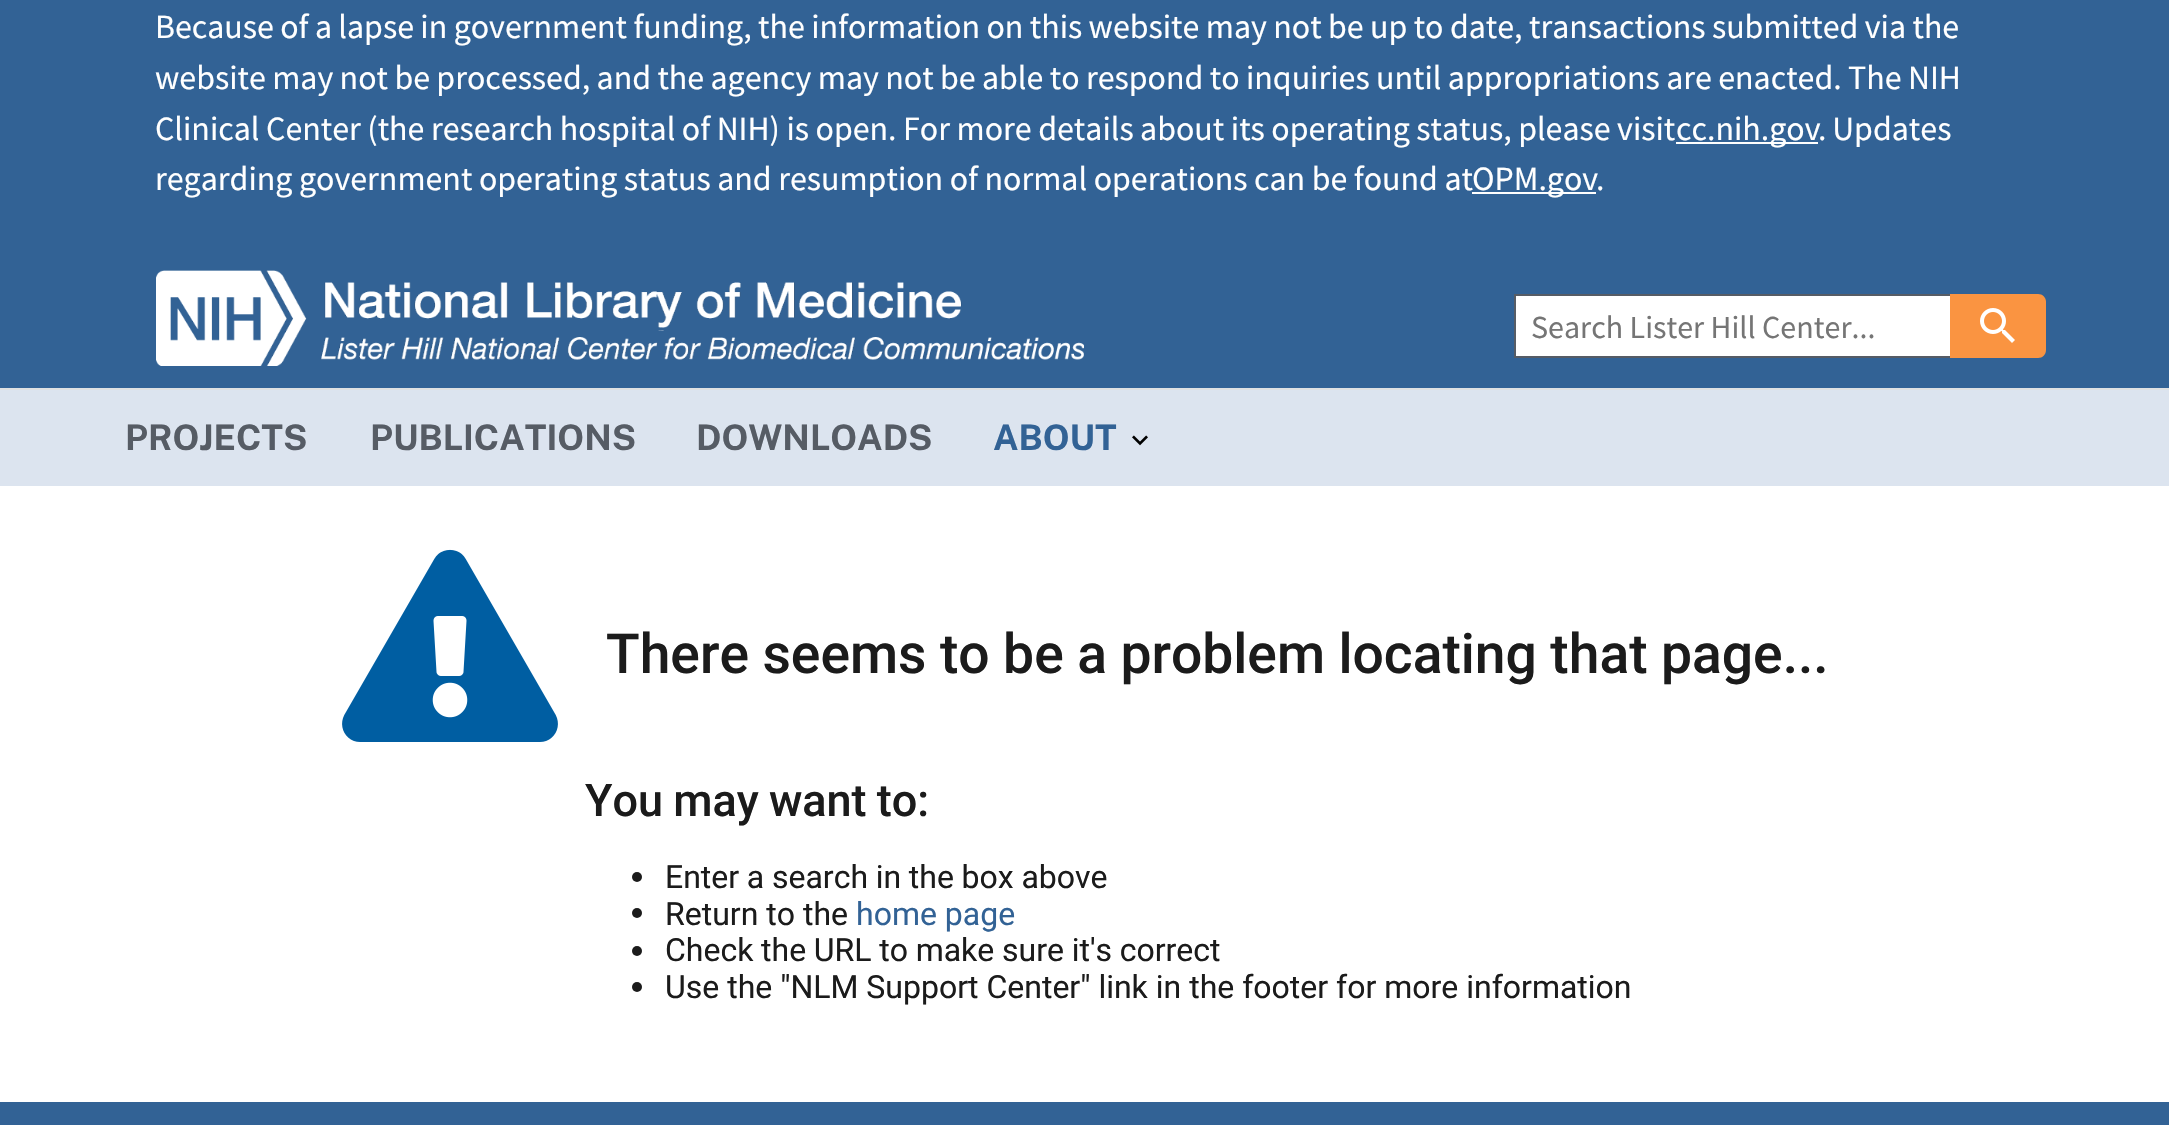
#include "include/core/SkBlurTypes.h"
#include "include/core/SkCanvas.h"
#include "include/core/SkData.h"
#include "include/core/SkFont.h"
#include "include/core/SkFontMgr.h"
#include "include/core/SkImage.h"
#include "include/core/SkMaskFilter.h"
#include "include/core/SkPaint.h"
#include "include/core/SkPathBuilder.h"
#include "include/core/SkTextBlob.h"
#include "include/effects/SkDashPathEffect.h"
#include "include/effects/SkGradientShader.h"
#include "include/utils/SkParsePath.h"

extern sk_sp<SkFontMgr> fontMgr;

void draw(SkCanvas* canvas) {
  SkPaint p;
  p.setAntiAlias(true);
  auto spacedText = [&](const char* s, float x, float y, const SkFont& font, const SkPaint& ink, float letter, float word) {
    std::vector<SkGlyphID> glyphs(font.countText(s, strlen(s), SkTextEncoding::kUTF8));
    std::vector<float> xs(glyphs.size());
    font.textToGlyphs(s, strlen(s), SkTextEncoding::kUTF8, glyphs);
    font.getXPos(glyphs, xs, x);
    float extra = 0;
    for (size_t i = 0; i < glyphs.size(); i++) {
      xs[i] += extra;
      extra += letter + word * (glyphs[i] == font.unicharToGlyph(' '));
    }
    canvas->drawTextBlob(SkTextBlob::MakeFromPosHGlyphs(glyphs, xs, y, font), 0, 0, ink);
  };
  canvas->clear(SK_ColorWHITE);
  p.setColor(SkColorSetRGB(50, 98, 149));
  canvas->drawRect(SkRect::MakeLTRB(0, 0, 2169, 388), p);
  p.setColor(SK_ColorWHITE);
  canvas->drawRect(SkRect::MakeLTRB(1676, 142, 1818, 144), p);
  canvas->drawRect(SkRect::MakeLTRB(1472, 192, 1596, 194), p);
  canvas->drawImageRect(SkImages::DeferredFromEncodedData(SkData::MakeFromFileName("images/1.png")), SkRect::MakeLTRB(156, 270, 307, 366), SkSamplingOptions());
  canvas->drawImageRect(SkImages::DeferredFromEncodedData(SkData::MakeFromFileName("images/2.png")), SkRect::MakeLTRB(324, 282, 962, 328), SkSamplingOptions());
  canvas->drawImageRect(SkImages::DeferredFromEncodedData(SkData::MakeFromFileName("images/3.png")), SkRect::MakeLTRB(320, 330, 1084, 360), SkSamplingOptions());
  p.setColor(SkColorSetRGB(220, 228, 239));
  canvas->drawRect(SkRect::MakeLTRB(0, 390, 2169, 486), p);
  p.setColor(SkColorSetRGB(223, 225, 226));
  canvas->drawRect(SkRect::MakeLTRB(0, 388, 2169, 390), p);
  p.setColor(SK_ColorWHITE);
  canvas->drawRect(SkRect::MakeLTRB(1516, 296, 1950, 356), p);
  p.setColor(SkColorSetRGB(86, 92, 101));
  canvas->drawRect(SkRect::MakeLTRB(1514, 294, 1950, 296), p);
  canvas->drawRect(SkRect::MakeLTRB(1514, 356, 1950, 358), p);
  canvas->drawRect(SkRect::MakeLTRB(1514, 294, 1516, 358), p);
  p.setColor(SkColorSetRGB(250, 148, 65));
  canvas->drawPath(SkPathBuilder().moveTo(1950, 294).lineTo(2038, 294).cubicTo(2042.5f, 294, 2046, 297.5f, 2046, 302).lineTo(2046, 350).cubicTo(2046, 354.5f, 2042.5f, 358, 2038, 358).lineTo(1950, 358).close().detach(), p);
  canvas->drawImageRect(SkImages::DeferredFromEncodedData(SkData::MakeFromFileName("images/4.png")), SkRect::MakeLTRB(1980, 308, 2015, 343), SkSamplingOptions());
  canvas->drawImageRect(SkImages::DeferredFromEncodedData(SkData::MakeFromFileName("images/5.png")), SkRect::MakeLTRB(1132, 435, 1148, 446), SkSamplingOptions());
  canvas->drawImageRect(SkImages::DeferredFromEncodedData(SkData::MakeFromFileName("images/6.png")), SkRect::MakeLTRB(342, 549, 558, 742), SkSamplingOptions());
  p.setColor(SkColorSetRGB(27, 27, 27));
  canvas->drawCircle(637, 877, 5, p);
  canvas->drawCircle(637, 913, 5, p);
  canvas->drawCircle(637, 951, 5, p);
  canvas->drawCircle(637, 987, 5, p);
  p.setColor(SkColorSetRGB(50, 98, 149));
  canvas->drawRect(SkRect::MakeLTRB(0, 1102, 2169, 1125), p);
  SkFont font1(fontMgr->matchFamilyStyle("Source Sans Pro", SkFontStyle::Normal()), 33.92f);
  font1.setSubpixel(true);
  p.setColor(SK_ColorWHITE);
  spacedText("Because of a lapse in government funding, the information on this website may not be up to date, transactions submitted via the", 155, 38, font1, p, 0, -0.4f);
  spacedText("website may not be processed, and the agency may not be able to respond to inquiries until appropriations are enacted. The NIH", 155, 89, font1, p, 0, -0.4f);
  spacedText("Clinical Center (the research hospital of NIH) is open. For more details about its operating status, please visit", 155, 140, font1, p, 0, -0.25f);
  canvas->drawString("cc.nih.gov", 1676, 140, font1, p);
  spacedText(". Updates", 1818, 140, font1, p, 0, -1);
  spacedText("regarding government operating status and resumption of normal operations can be found at", 155, 190, font1, p, 0, -0.25f);
  canvas->drawString("OPM.gov", 1472, 190, font1, p);
  canvas->drawString(".", 1596, 190, font1, p);
  SkFont font2(fontMgr->matchFamilyStyle("Source Sans Pro", SkFontStyle::Normal()), 32);
  font2.setSubpixel(true);
  p.setColor(SkColorSetRGB(117, 117, 117));
  canvas->drawString("Search Lister Hill Center...", 1531, 338, font2, p);
  SkFont font3(fontMgr->matchFamilyStyle("Public Sans", SkFontStyle::Bold()), 35.25f);
  font3.setSubpixel(true);
  p.setColor(SkColorSetRGB(86, 92, 101));
  canvas->drawString("PROJECTS", 125, 450, font3, p);
  canvas->drawString("PUBLICATIONS", 370, 450, font3, p);
  canvas->drawString("DOWNLOADS", 696, 450, font3, p);
  p.setColor(SkColorSetRGB(50, 98, 149));
  canvas->drawString("ABOUT", 993, 450, font3, p);
  SkFont font4(fontMgr->matchFamilyStyle("Roboto", SkFontStyle(500, SkFontStyle::kNormal_Width, SkFontStyle::kUpright_Slant)), 55.2f);
  font4.setSubpixel(true);
  p.setColor(SkColorSetRGB(27, 27, 27));
  spacedText("There seems to be a problem locating that page...", 606, 673, font4, p, 0, -0.25f);
  SkFont font5(fontMgr->matchFamilyStyle("Roboto", SkFontStyle(500, SkFontStyle::kNormal_Width, SkFontStyle::kUpright_Slant)), 45);
  font5.setSubpixel(true);
  spacedText("You may want to:", 585, 816, font5, p, 0, -1);
  SkFont font6(fontMgr->matchFamilyStyle("Roboto", SkFontStyle::Normal()), 32);
  font6.setSubpixel(true);
  spacedText("Enter a search in the box above", 665, 888, font6, p, 0, -0.25f);
  canvas->drawString("Return to the", 665, 925, font6, p);
  p.setColor(SkColorSetRGB(50, 98, 149));
  canvas->drawString("home page", 856, 925, font6, p);
  p.setColor(SkColorSetRGB(27, 27, 27));
  spacedText("Check the URL to make sure it's correct", 665, 961, font6, p, 0, -0.25f);
  canvas->drawString("Use the \"NLM Support Center\" link in the footer for more information", 665, 998, font6, p);
}
